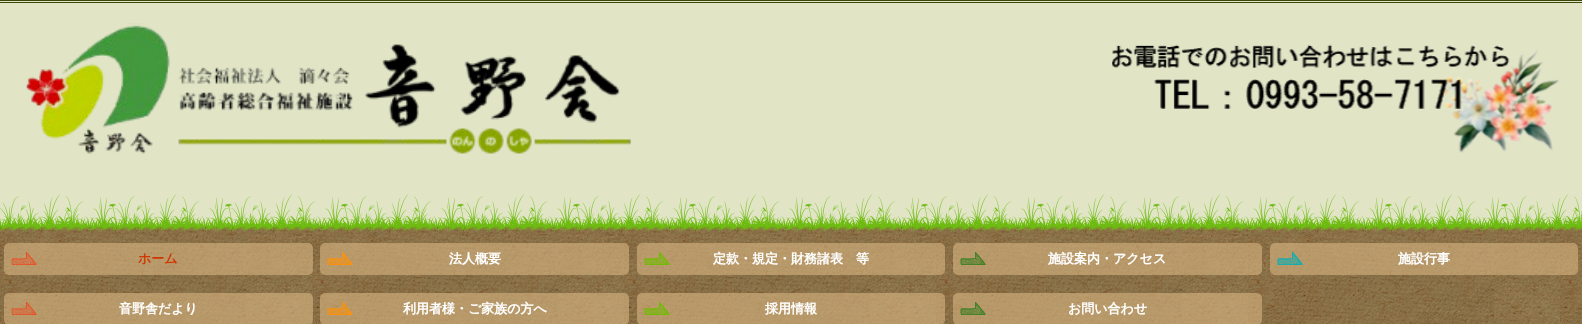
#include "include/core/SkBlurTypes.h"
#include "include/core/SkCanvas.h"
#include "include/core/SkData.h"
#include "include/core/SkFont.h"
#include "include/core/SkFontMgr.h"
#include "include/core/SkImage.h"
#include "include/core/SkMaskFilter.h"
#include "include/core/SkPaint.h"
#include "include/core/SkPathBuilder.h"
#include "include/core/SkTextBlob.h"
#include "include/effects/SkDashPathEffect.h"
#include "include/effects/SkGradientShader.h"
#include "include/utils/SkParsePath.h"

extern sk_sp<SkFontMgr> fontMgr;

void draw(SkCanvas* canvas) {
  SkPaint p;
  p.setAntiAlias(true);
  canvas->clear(SkColorSetRGB(225, 229, 198));
  p.setColor(SkColorSetRGB(60, 72, 10));
  canvas->drawRect(SkRect::MakeLTRB(0, 0, 1582, 1), p);
  canvas->drawRect(SkRect::MakeLTRB(0, 2, 1582, 3), p);
  canvas->drawImageRect(SkImages::DeferredFromEncodedData(SkData::MakeFromFileName("images/1.png")), SkRect::MakeLTRB(26, 23, 631, 154), SkSamplingOptions());
  canvas->drawImageRect(SkImages::DeferredFromEncodedData(SkData::MakeFromFileName("images/2.png")), SkRect::MakeLTRB(1112, 44, 1559, 153), SkSamplingOptions());
  canvas->drawImageRect(SkImages::DeferredFromEncodedData(SkData::MakeFromFileName("images/3.png")), SkRect::MakeLTRB(0, 194, 1582, 234), SkSamplingOptions());
  canvas->drawImageRect(SkImages::DeferredFromEncodedData(SkData::MakeFromFileName("images/4.png")), SkRect::MakeLTRB(0, 234, 1582, 324), SkSamplingOptions());
  p.setColor(SkColorSetARGB(153, 215, 180, 129));
  canvas->drawRoundRect(SkRect::MakeLTRB(4, 243, 313, 275), 5, 5, p);
  canvas->drawImageRect(SkImages::DeferredFromEncodedData(SkData::MakeFromFileName("images/5.png")), SkRect::MakeLTRB(11, 252, 37, 265), SkSamplingOptions());
  canvas->drawRoundRect(SkRect::MakeLTRB(320, 243, 629, 275), 5, 5, p);
  canvas->drawImageRect(SkImages::DeferredFromEncodedData(SkData::MakeFromFileName("images/6.png")), SkRect::MakeLTRB(327, 252, 353, 265), SkSamplingOptions());
  canvas->drawRoundRect(SkRect::MakeLTRB(637, 243, 945, 275), 5, 5, p);
  canvas->drawImageRect(SkImages::DeferredFromEncodedData(SkData::MakeFromFileName("images/7.png")), SkRect::MakeLTRB(644, 252, 670, 265), SkSamplingOptions());
  canvas->drawRoundRect(SkRect::MakeLTRB(953, 243, 1262, 275), 5, 5, p);
  canvas->drawImageRect(SkImages::DeferredFromEncodedData(SkData::MakeFromFileName("images/8.png")), SkRect::MakeLTRB(960, 252, 986, 265), SkSamplingOptions());
  canvas->drawRoundRect(SkRect::MakeLTRB(1270, 243, 1578, 275), 5, 5, p);
  canvas->drawImageRect(SkImages::DeferredFromEncodedData(SkData::MakeFromFileName("images/9.png")), SkRect::MakeLTRB(1277, 252, 1303, 265), SkSamplingOptions());
  canvas->drawRoundRect(SkRect::MakeLTRB(4, 293, 313, 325), 5, 5, p);
  canvas->drawImageRect(SkImages::DeferredFromEncodedData(SkData::MakeFromFileName("images/10.png")), SkRect::MakeLTRB(11, 302, 37, 315), SkSamplingOptions());
  canvas->drawRoundRect(SkRect::MakeLTRB(320, 293, 629, 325), 5, 5, p);
  canvas->drawImageRect(SkImages::DeferredFromEncodedData(SkData::MakeFromFileName("images/11.png")), SkRect::MakeLTRB(327, 302, 353, 315), SkSamplingOptions());
  canvas->drawRoundRect(SkRect::MakeLTRB(637, 293, 945, 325), 5, 5, p);
  canvas->drawImageRect(SkImages::DeferredFromEncodedData(SkData::MakeFromFileName("images/12.png")), SkRect::MakeLTRB(644, 302, 670, 315), SkSamplingOptions());
  canvas->drawRoundRect(SkRect::MakeLTRB(953, 293, 1262, 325), 5, 5, p);
  canvas->drawImageRect(SkImages::DeferredFromEncodedData(SkData::MakeFromFileName("images/13.png")), SkRect::MakeLTRB(960, 302, 986, 315), SkSamplingOptions());
  SkFont font1(fontMgr->matchFamilyStyle("WenQuanYi Zen Hei", SkFontStyle::Bold()), 13);
  font1.setSubpixel(true);
  p.setColor(SkColorSetRGB(207, 56, 0));
  canvas->drawString("ホーム", 138, 263, font1, p);
  p.setColor(SK_ColorWHITE);
  canvas->drawString("法人概要", 449, 263, font1, p);
  canvas->drawString("定款・規定・財務諸表　等", 713, 263, font1, p);
  canvas->drawString("施設案内・アクセス", 1048, 263, font1, p);
  canvas->drawString("施設行事", 1398, 263, font1, p);
  canvas->drawString("音野舎だより", 119, 313, font1, p);
  canvas->drawString("利用者様・ご家族の方へ", 403, 313, font1, p);
  canvas->drawString("採用情報", 765, 313, font1, p);
  canvas->drawString("お問い合わせ", 1068, 313, font1, p);
}
